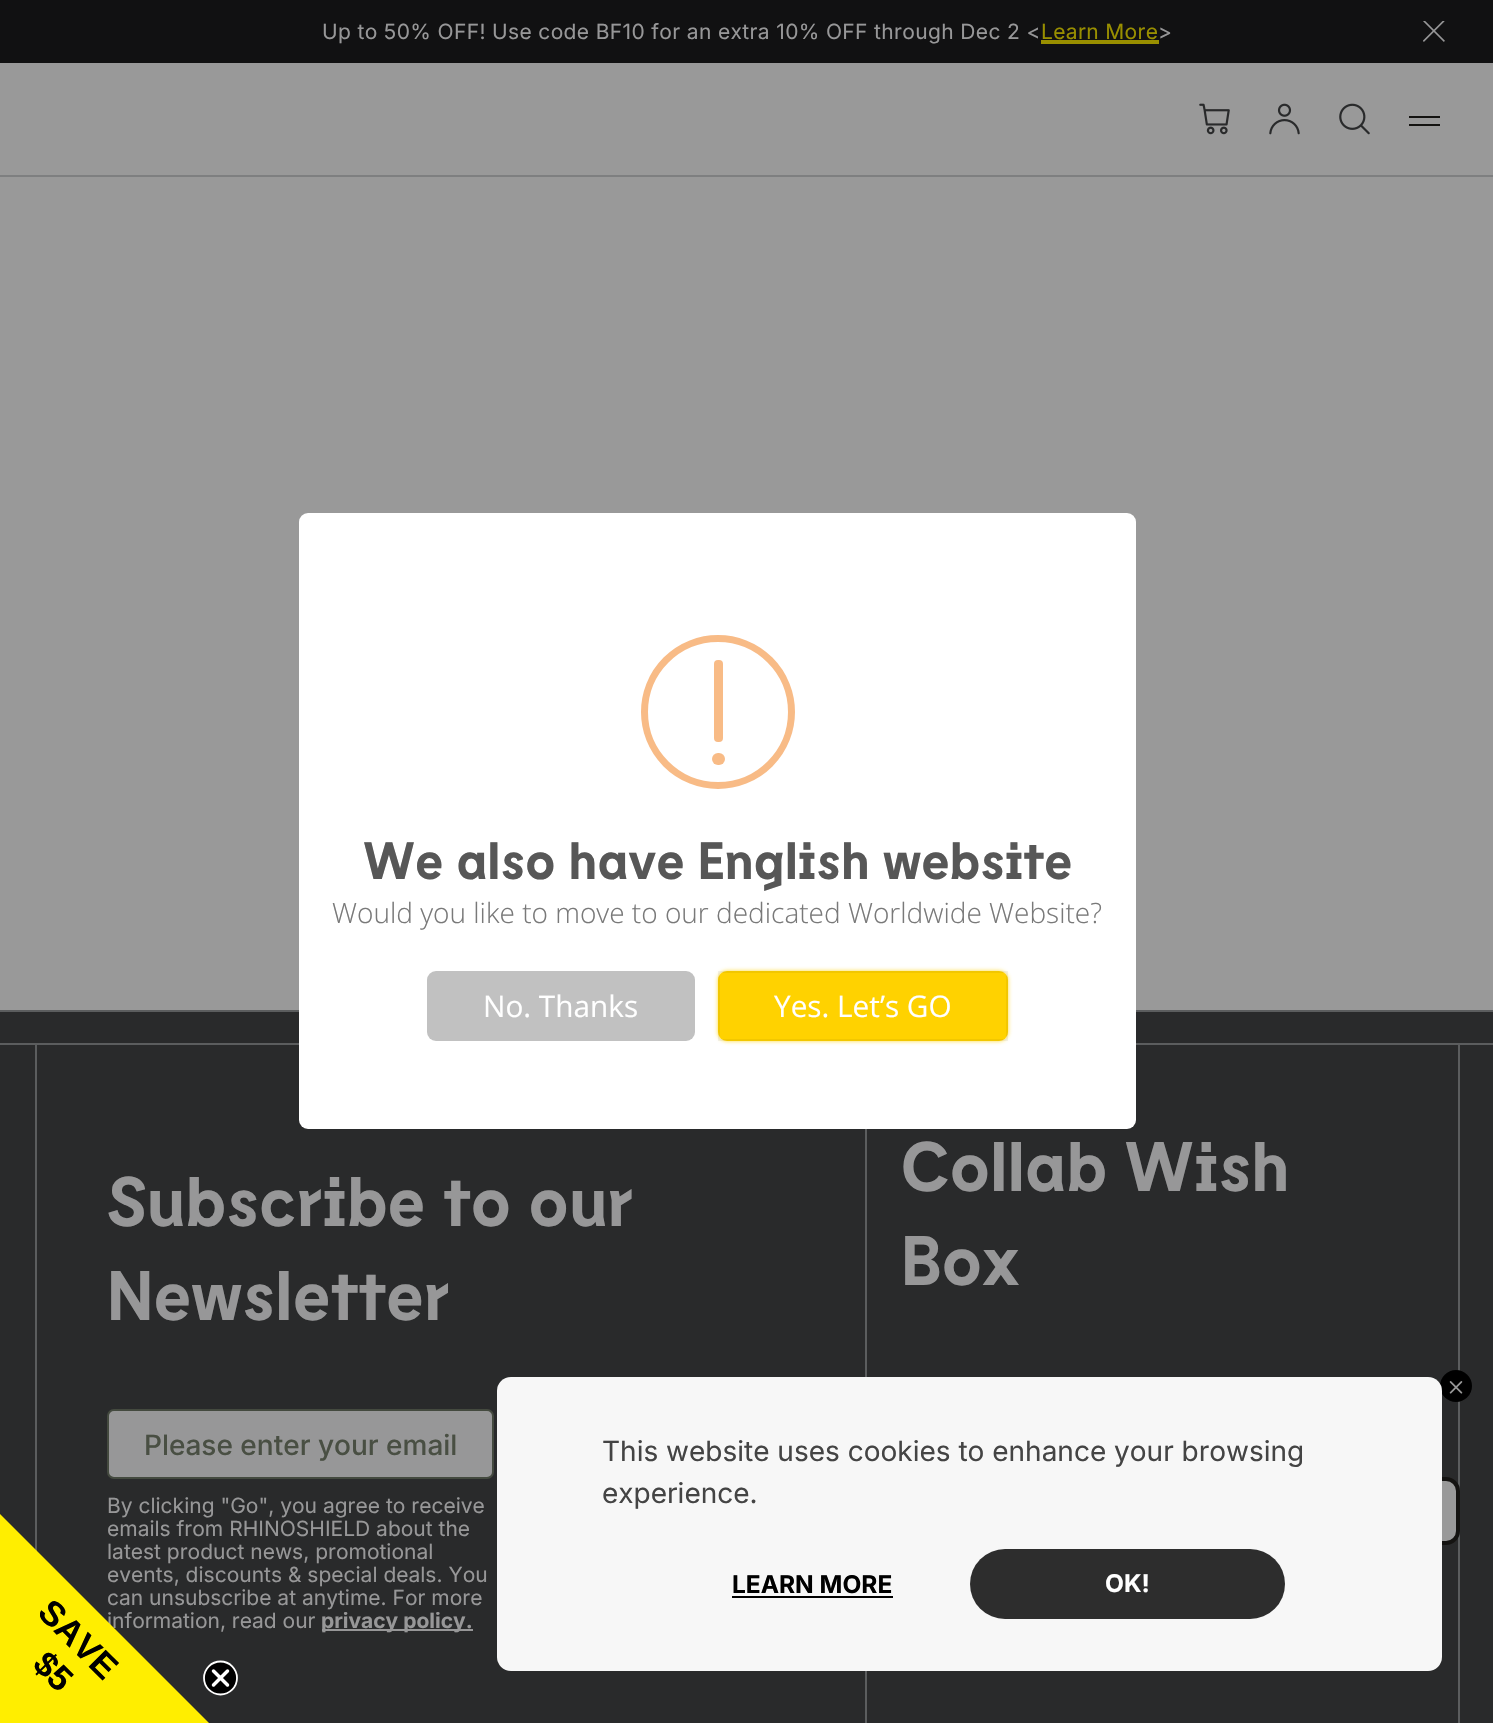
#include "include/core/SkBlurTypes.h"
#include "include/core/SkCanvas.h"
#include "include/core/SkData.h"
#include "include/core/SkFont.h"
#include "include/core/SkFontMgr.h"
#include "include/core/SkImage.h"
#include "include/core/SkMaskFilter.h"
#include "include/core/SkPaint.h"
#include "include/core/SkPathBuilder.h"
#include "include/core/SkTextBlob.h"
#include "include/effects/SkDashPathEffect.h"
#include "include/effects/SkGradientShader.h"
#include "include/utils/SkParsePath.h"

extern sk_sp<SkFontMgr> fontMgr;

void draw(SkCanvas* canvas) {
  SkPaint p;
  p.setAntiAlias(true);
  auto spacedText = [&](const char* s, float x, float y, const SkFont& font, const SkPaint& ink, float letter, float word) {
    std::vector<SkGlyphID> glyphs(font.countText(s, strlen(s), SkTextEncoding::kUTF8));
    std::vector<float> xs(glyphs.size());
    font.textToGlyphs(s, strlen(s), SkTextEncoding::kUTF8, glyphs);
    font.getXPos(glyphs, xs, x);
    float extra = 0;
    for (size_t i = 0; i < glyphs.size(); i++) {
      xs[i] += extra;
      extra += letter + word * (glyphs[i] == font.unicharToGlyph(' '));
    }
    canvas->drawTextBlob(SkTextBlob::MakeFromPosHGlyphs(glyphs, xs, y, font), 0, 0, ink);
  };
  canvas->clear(SkColorSetRGB(153, 153, 153));
  p.setColor(SkColorSetRGB(126, 127, 128));
  canvas->drawRect(SkRect::MakeLTRB(0, 175, 1493, 177), p);
  p.setColor(SkColorSetRGB(17, 17, 18));
  canvas->drawRect(SkRect::MakeLTRB(0, 0, 1493, 63), p);
  p.setColor(SkColorSetRGB(153, 143, 0));
  canvas->drawRect(SkRect::MakeLTRB(1041, 40, 1159, 44), p);
  canvas->drawImageRect(SkImages::DeferredFromEncodedData(SkData::MakeFromFileName("images/1.png")), SkRect::MakeLTRB(1423, 21, 1445, 42), SkSamplingOptions());
  canvas->drawImageRect(SkImages::DeferredFromEncodedData(SkData::MakeFromFileName("images/2.png")), SkRect::MakeLTRB(1199, 103, 1230, 135), SkSamplingOptions());
  canvas->drawImageRect(SkImages::DeferredFromEncodedData(SkData::MakeFromFileName("images/3.png")), SkRect::MakeLTRB(1269, 103, 1300, 135), SkSamplingOptions());
  canvas->drawImageRect(SkImages::DeferredFromEncodedData(SkData::MakeFromFileName("images/4.png")), SkRect::MakeLTRB(1339, 103, 1370, 135), SkSamplingOptions());
  p.setColor(SkColorSetRGB(20, 19, 17));
  canvas->drawRect(SkRect::MakeLTRB(1409, 116, 1440, 118), p);
  canvas->drawRect(SkRect::MakeLTRB(1409, 124, 1440, 126), p);
  p.setColor(SkColorSetRGB(41, 42, 43));
  canvas->drawRect(SkRect::MakeLTRB(0, 1012, 1493, 1723), p);
  p.setColor(SkColorSetRGB(91, 93, 94));
  canvas->drawRect(SkRect::MakeLTRB(0, 1010, 1493, 1012), p);
  canvas->drawRect(SkRect::MakeLTRB(0, 1043, 1493, 1045), p);
  p.setColor(SK_ColorWHITE);
  canvas->drawRoundRect(SkRect::MakeLTRB(299, 513, 1136, 1129), 9, 9, p);
  p.setStyle(SkPaint::kStroke_Style);
  p.setStrokeWidth(7);
  p.setColor(SkColorSetRGB(248, 187, 134));
  canvas->drawCircle(718, 712, 73.5f, p);
  p.setStyle(SkPaint::kFill_Style);
  canvas->drawRoundRect(SkRect::MakeLTRB(714, 660, 723, 742), 4, 4, p);
  canvas->drawRoundRect(SkRect::MakeLTRB(712, 753, 725, 765), 6, 6, p);
  p.setColor(SkColorSetRGB(193, 193, 193));
  canvas->drawRoundRect(SkRect::MakeLTRB(427, 971, 695, 1041), 9, 9, p);
  p.setColor(SkColorSetARGB(204, 255, 210, 0));
  p.setMaskFilter(SkMaskFilter::MakeBlur(kNormal_SkBlurStyle, 2));
  canvas->drawRoundRect(SkRect::MakeLTRB(718, 971, 1008, 1041), 9, 9, p);
  p.setMaskFilter(nullptr);
  p.setColor(SkColorSetRGB(255, 210, 0));
  canvas->drawRoundRect(SkRect::MakeLTRB(718, 971, 1008, 1041), 9, 9, p);
  p.setStyle(SkPaint::kStroke_Style);
  p.setStrokeWidth(2);
  p.setColor(SkColorSetARGB(13, 0, 0, 0));
  canvas->drawRect(SkRect::MakeLTRB(719, 972, 1007, 1040), p);
  p.setStyle(SkPaint::kFill_Style);
  p.setColor(SkColorSetRGB(91, 93, 94));
  canvas->drawRect(SkRect::MakeLTRB(1458, 1045, 1460, 1723), p);
  canvas->drawRect(SkRect::MakeLTRB(35, 1045, 37, 1551), p);
  canvas->drawRect(SkRect::MakeLTRB(865, 1129, 867, 1723), p);
  p.setColor(SkColorSetRGB(151, 151, 152));
  canvas->drawRoundRect(SkRect::MakeLTRB(108, 1410, 493, 1478), 6, 6, p);
  p.setStyle(SkPaint::kStroke_Style);
  p.setColor(SkColorSetRGB(68, 74, 63));
  canvas->drawRoundRect(SkRect::MakeLTRB(108, 1410, 493, 1478), 6, 6, p);
  p.setStyle(SkPaint::kFill_Style);
  p.setColor(SkColorSetRGB(151, 151, 152));
  canvas->drawRect(SkRect::MakeLTRB(322, 1629, 473, 1631), p);
  p.setColor(SK_ColorBLACK);
  canvas->drawCircle(1456, 1386, 16, p);
  canvas->drawImageRect(SkImages::DeferredFromEncodedData(SkData::MakeFromFileName("images/5.png")), SkRect::MakeLTRB(1449, 1381, 1463, 1394), SkSamplingOptions());
  p.setColor(SkColorSetRGB(153, 153, 153));
  canvas->drawRoundRect(SkRect::MakeLTRB(1409, 1479, 1458, 1543), 12, 12, p);
  p.setStyle(SkPaint::kStroke_Style);
  p.setStrokeWidth(4);
  p.setColor(SkColorSetRGB(20, 19, 17));
  canvas->drawRoundRect(SkRect::MakeLTRB(1409, 1479, 1458, 1543), 12, 12, p);
  p.setStyle(SkPaint::kFill_Style);
  p.setColor(SkColorSetRGB(247, 247, 247));
  canvas->drawRoundRect(SkRect::MakeLTRB(497, 1377, 1442, 1671), 14, 14, p);
  p.setColor(SK_ColorBLACK);
  canvas->drawRect(SkRect::MakeLTRB(732, 1596, 893, 1598), p);
  p.setColor(SkColorSetRGB(45, 45, 45));
  canvas->drawRoundRect(SkRect::MakeLTRB(970, 1549, 1285, 1619), 35, 35, p);
  SkFont font1(fontMgr->matchFamilyStyle("Inter", SkFontStyle::Normal()), 21);
  font1.setSubpixel(true);
  p.setColor(SkColorSetRGB(151, 151, 152));
  spacedText("Up to 50% OFF! Use code BF10 for an extra 10% OFF through Dec 2 <", 322, 39, font1, p, 0.35f, 0);
  p.setColor(SkColorSetRGB(153, 143, 0));
  spacedText("Learn More", 1041, 39, font1, p, 0.35f, 0);
  p.setColor(SkColorSetRGB(151, 151, 152));
  spacedText(">", 1158, 39, font1, p, 0.35f, 0);
  SkFont font2(fontMgr->matchFamilyStyle("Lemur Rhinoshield", SkFontStyle::Bold()), 52.5f);
  font2.setSubpixel(true);
  p.setColor(SkColorSetRGB(87, 87, 87));
  canvas->drawString("We also have English website", 363, 879, font2, p);
  SkFont font3(fontMgr->matchFamilyStyle("Open Sans", SkFontStyle(300, SkFontStyle::kNormal_Width, SkFontStyle::kUpright_Slant)), 28);
  font3.setSubpixel(true);
  p.setColor(SkColorSetRGB(121, 121, 121));
  canvas->drawString("Would you like to move to our dedicated Worldwide Website?", 332, 923, font3, p);
  SkFont font4(fontMgr->matchFamilyStyle("Open Sans", SkFontStyle::Normal()), 29.75f);
  font4.setSubpixel(true);
  p.setColor(SK_ColorWHITE);
  canvas->drawString("No. Thanks", 483, 1017, font4, p);
  canvas->drawString("Yes. Let’s GO", 774, 1017, font4, p);
  SkFont font5(fontMgr->matchFamilyStyle("Lemur Rhinoshield", SkFontStyle::Bold()), 70);
  font5.setSubpixel(true);
  p.setColor(SkColorSetRGB(151, 151, 152));
  canvas->drawString("Subscribe to our", 107, 1226, font5, p);
  canvas->drawString("Newsletter", 107, 1320, font5, p);
  SkFont font6(fontMgr->matchFamilyStyle("Inter", SkFontStyle(500, SkFontStyle::kNormal_Width, SkFontStyle::kUpright_Slant)), 28);
  font6.setSubpixel(true);
  p.setColor(SkColorSetRGB(73, 79, 67));
  canvas->drawString("Please enter your email", 144, 1455, font6, p);
  p.setColor(SkColorSetRGB(151, 151, 152));
  canvas->drawString("By clicking \"Go\", you agree to receive", 107, 1513, font1, p);
  canvas->drawString("emails from RHINOSHIELD about the", 107, 1536, font1, p);
  canvas->drawString("latest product news, promotional", 107, 1559, font1, p);
  canvas->drawString("events, discounts & special deals. You", 107, 1582, font1, p);
  canvas->drawString("can unsubscribe at anytime. For more", 107, 1605, font1, p);
  canvas->drawString("information, read our", 107, 1628, font1, p);
  SkFont font7(fontMgr->matchFamilyStyle("Inter", SkFontStyle::Bold()), 21);
  font7.setSubpixel(true);
  canvas->drawString("privacy policy.", 321, 1628, font7, p);
  canvas->drawString("Collab Wish", 901, 1191, font5, p);
  canvas->drawString("Box", 901, 1285, font5, p);
  SkFont font8(fontMgr->matchFamilyStyle("Inter", SkFontStyle::Normal()), 28);
  font8.setSubpixel(true);
  p.setColor(SkColorSetRGB(68, 68, 68));
  canvas->drawString("This website uses cookies to enhance your browsing", 602, 1461, font8, p);
  canvas->drawString("experience.", 602, 1503, font8, p);
  SkFont font9(fontMgr->matchFamilyStyle("Inter", SkFontStyle::Bold()), 24.5f);
  font9.setSubpixel(true);
  p.setColor(SK_ColorBLACK);
  canvas->drawString("LEARN MORE", 732, 1593, font9, p);
  p.setColor(SK_ColorWHITE);
  canvas->drawString("OK!", 1105, 1592, font9, p);
  p.setColor(SkColorSetRGB(255, 238, 0));
  canvas->drawPath(SkPathBuilder().moveTo(0, 1514).lineTo(0, 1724).lineTo(210, 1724).close().detach(), p);
  SkFont font10(fontMgr->matchFamilyStyle("Liberation Sans", SkFontStyle::Bold()), 35);
  font10.setSubpixel(true);
  p.setColor(SK_ColorBLACK);
  canvas->save();
  canvas->rotate(45, 36, 1614);
  canvas->drawString("SAVE", 36, 1614, font10, p);
  canvas->restore();
  canvas->save();
  canvas->rotate(45, 31, 1666);
  canvas->drawString("$5", 31, 1666, font10, p);
  canvas->restore();
  canvas->drawCircle(220.5f, 1678, 16.5f, p);
  p.setStyle(SkPaint::kStroke_Style);
  p.setStrokeWidth(1.8f);
  p.setColor(SK_ColorWHITE);
  canvas->drawCircle(220.5f, 1678, 16.5f, p);
  p.setStrokeWidth(3.5f);
  p.setStrokeCap(SkPaint::kRound_Cap);
  p.setStrokeJoin(SkPaint::kRound_Join);
  canvas->drawPath(SkPathBuilder().moveTo(213.5f, 1671).lineTo(227.5f, 1685).moveTo(213.5f, 1685).lineTo(227.5f, 1671).close().detach(), p);
}
